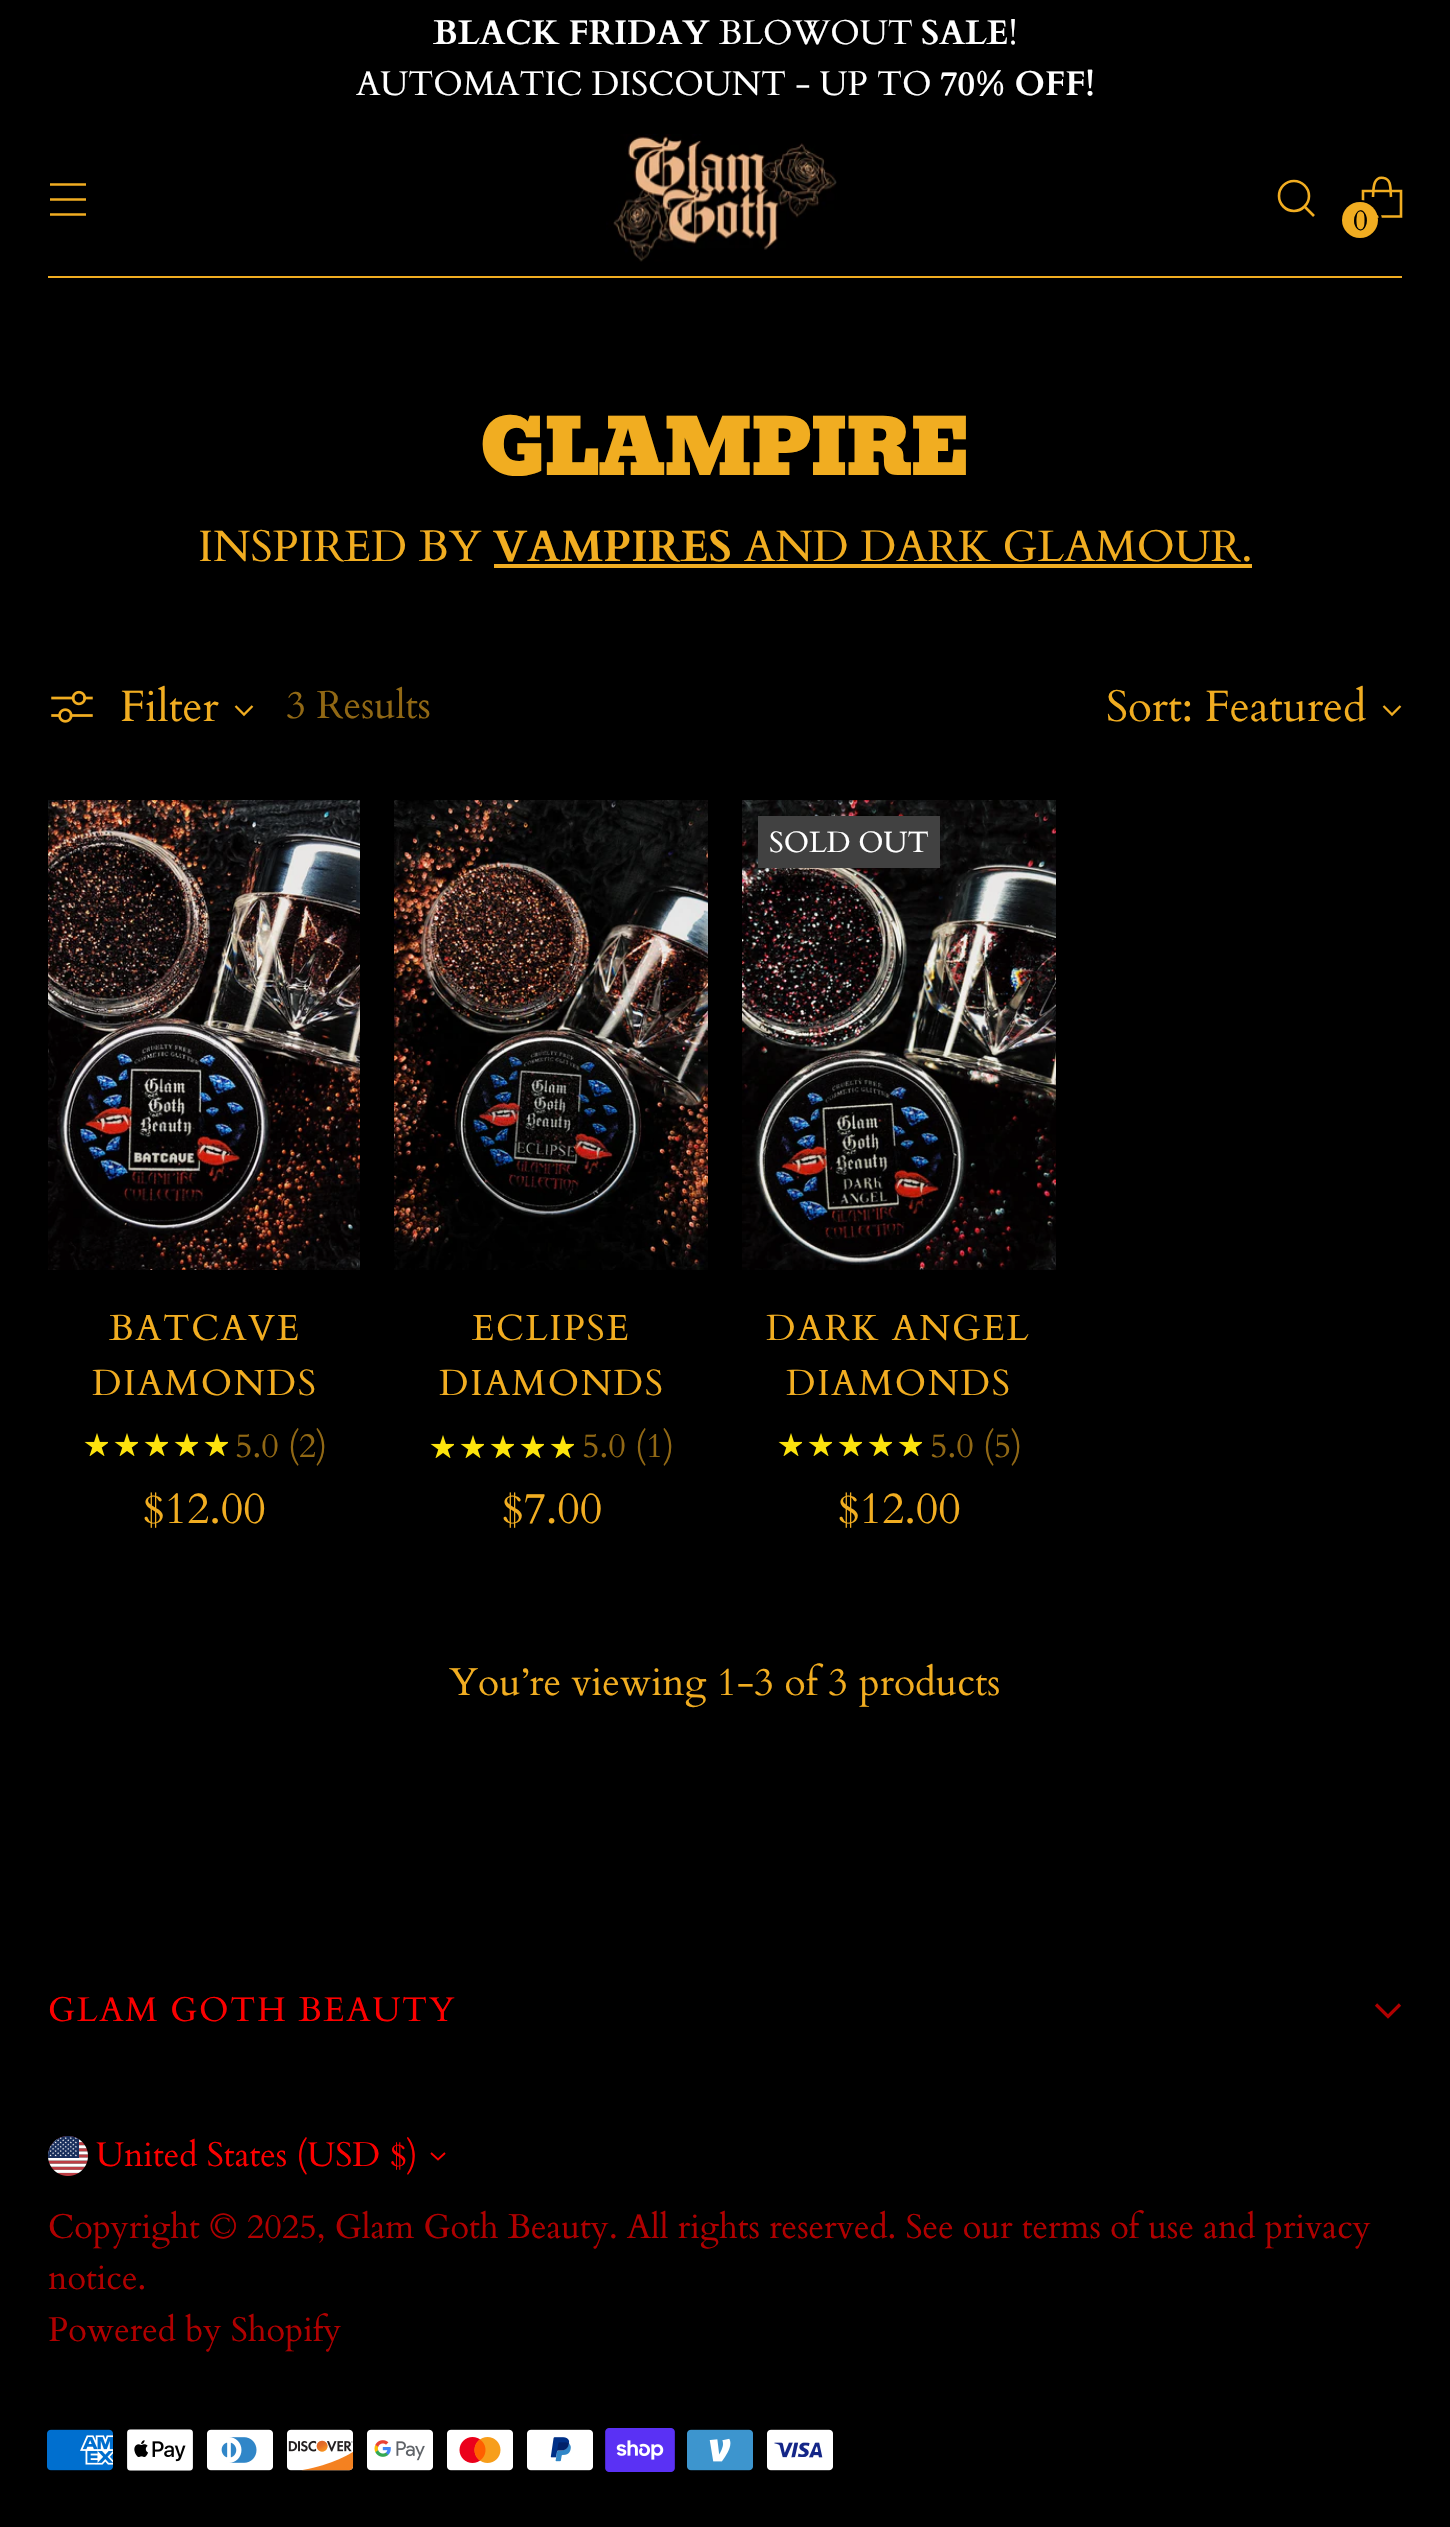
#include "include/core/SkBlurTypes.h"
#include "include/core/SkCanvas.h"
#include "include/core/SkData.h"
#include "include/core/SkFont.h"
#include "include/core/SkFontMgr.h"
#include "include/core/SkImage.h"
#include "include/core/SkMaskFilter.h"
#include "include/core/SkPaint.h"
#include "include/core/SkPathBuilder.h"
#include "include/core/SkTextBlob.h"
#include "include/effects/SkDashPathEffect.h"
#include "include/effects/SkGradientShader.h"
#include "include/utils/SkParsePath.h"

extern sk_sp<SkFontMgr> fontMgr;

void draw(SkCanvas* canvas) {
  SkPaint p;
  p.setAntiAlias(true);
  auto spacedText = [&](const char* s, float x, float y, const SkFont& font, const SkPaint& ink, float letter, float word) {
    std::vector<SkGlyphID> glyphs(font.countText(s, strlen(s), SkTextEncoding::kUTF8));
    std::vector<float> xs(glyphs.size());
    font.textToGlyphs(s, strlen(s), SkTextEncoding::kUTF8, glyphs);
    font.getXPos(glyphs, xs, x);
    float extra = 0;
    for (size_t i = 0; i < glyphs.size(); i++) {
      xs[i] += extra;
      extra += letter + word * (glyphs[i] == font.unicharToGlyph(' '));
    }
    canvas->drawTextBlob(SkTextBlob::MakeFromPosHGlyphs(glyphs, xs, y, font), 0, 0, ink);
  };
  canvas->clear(SK_ColorBLACK);
  p.setColor(SkColorSetRGB(241, 173, 33));
  canvas->drawRect(SkRect::MakeLTRB(48, 276, 1402, 278), p);
  p.setStyle(SkPaint::kStroke_Style);
  p.setStrokeWidth(2.6f);
  canvas->drawPath(SkPathBuilder().moveTo(50, 199.5f).lineTo(86, 199.5f).moveTo(50, 184.5f).lineTo(86, 184.5f).moveTo(50, 214.5f).lineTo(86, 214.5f).detach(), p);
  canvas->drawImageRect(SkImages::DeferredFromEncodedData(SkData::MakeFromFileName("images/1.png")), SkRect::MakeLTRB(606, 134, 837, 262), SkSamplingOptions());
  p.setStrokeCap(SkPaint::kRound_Cap);
  canvas->drawPath(SkPathBuilder().moveTo(1294, 211).cubicTo(1302, 211, 1309, 204, 1309, 196).cubicTo(1309, 187.5f, 1302, 181, 1294, 181).cubicTo(1285.5f, 181, 1279, 187.5f, 1279, 196).cubicTo(1279, 204, 1285.5f, 211, 1294, 211).close().detach(), p);
  p.setStrokeCap(SkPaint::kButt_Cap);
  canvas->drawPath(SkPathBuilder().moveTo(1304.5f, 206.5f).lineTo(1314, 216).detach(), p);
  p.setStrokeJoin(SkPaint::kBevel_Join);
  canvas->drawPath(SkPathBuilder().moveTo(1391, 197).cubicTo(1390.5f, 192.5f, 1391, 187.5f, 1389.5f, 183).cubicTo(1388.5f, 180.5f, 1386.5f, 178.5f, 1384, 178).cubicTo(1372.5f, 175.5f, 1373.5f, 190, 1373, 197).detach(), p);
  p.setStrokeJoin(SkPaint::kMiter_Join);
  canvas->drawPath(SkPathBuilder().moveTo(1401, 216.5f).lineTo(1401, 191).lineTo(1363, 191).lineTo(1363, 216.5f).close().detach(), p);
  p.setStrokeWidth(3);
  p.setColor(SK_ColorBLACK);
  canvas->drawCircle(1361, 221, 19.5f, p);
  p.setStyle(SkPaint::kFill_Style);
  p.setColor(SkColorSetRGB(241, 173, 33));
  canvas->drawCircle(1360, 220, 18, p);
  canvas->drawRect(SkRect::MakeLTRB(494, 564, 1252, 568), p);
  canvas->drawImageRect(SkImages::DeferredFromEncodedData(SkData::MakeFromFileName("images/2.png")), SkRect::MakeLTRB(51, 690, 93, 723), SkSamplingOptions());
  p.setStyle(SkPaint::kStroke_Style);
  p.setStrokeWidth(2.3f);
  canvas->drawPath(SkPathBuilder().moveTo(235.5f, 706).lineTo(244, 714.5f).lineTo(252.5f, 706).detach(), p);
  canvas->drawPath(SkPathBuilder().moveTo(1383.5f, 706).lineTo(1392, 714.5f).lineTo(1400.5f, 706).detach(), p);
  canvas->drawImageRect(SkImages::DeferredFromEncodedData(SkData::MakeFromFileName("images/3.png")), SkRect::MakeLTRB(48, 800, 360, 1270), SkSamplingOptions());
  canvas->drawImageRect(SkImages::DeferredFromEncodedData(SkData::MakeFromFileName("images/4.png")), SkRect::MakeLTRB(84, 1433, 108, 1456), SkSamplingOptions());
  canvas->drawImageRect(SkImages::DeferredFromEncodedData(SkData::MakeFromFileName("images/4.png")), SkRect::MakeLTRB(114, 1433, 138, 1456), SkSamplingOptions());
  canvas->drawImageRect(SkImages::DeferredFromEncodedData(SkData::MakeFromFileName("images/4.png")), SkRect::MakeLTRB(144, 1433, 168, 1456), SkSamplingOptions());
  canvas->drawImageRect(SkImages::DeferredFromEncodedData(SkData::MakeFromFileName("images/4.png")), SkRect::MakeLTRB(174, 1433, 198, 1456), SkSamplingOptions());
  canvas->drawImageRect(SkImages::DeferredFromEncodedData(SkData::MakeFromFileName("images/4.png")), SkRect::MakeLTRB(204, 1433, 228, 1456), SkSamplingOptions());
  canvas->drawImageRect(SkImages::DeferredFromEncodedData(SkData::MakeFromFileName("images/5.png")), SkRect::MakeLTRB(394, 800, 708, 1270), SkSamplingOptions());
  canvas->drawImageRect(SkImages::DeferredFromEncodedData(SkData::MakeFromFileName("images/4.png")), SkRect::MakeLTRB(430, 1435, 454, 1458), SkSamplingOptions());
  canvas->drawImageRect(SkImages::DeferredFromEncodedData(SkData::MakeFromFileName("images/4.png")), SkRect::MakeLTRB(460, 1435, 484, 1458), SkSamplingOptions());
  canvas->drawImageRect(SkImages::DeferredFromEncodedData(SkData::MakeFromFileName("images/4.png")), SkRect::MakeLTRB(490, 1435, 514, 1458), SkSamplingOptions());
  canvas->drawImageRect(SkImages::DeferredFromEncodedData(SkData::MakeFromFileName("images/4.png")), SkRect::MakeLTRB(520, 1435, 544, 1458), SkSamplingOptions());
  canvas->drawImageRect(SkImages::DeferredFromEncodedData(SkData::MakeFromFileName("images/4.png")), SkRect::MakeLTRB(550, 1435, 574, 1458), SkSamplingOptions());
  canvas->drawImageRect(SkImages::DeferredFromEncodedData(SkData::MakeFromFileName("images/6.png")), SkRect::MakeLTRB(742, 800, 1056, 1270), SkSamplingOptions());
  p.setStyle(SkPaint::kFill_Style);
  p.setColor(SkColorSetRGB(65, 65, 65));
  canvas->drawRect(SkRect::MakeLTRB(758, 816, 940, 868), p);
  canvas->drawImageRect(SkImages::DeferredFromEncodedData(SkData::MakeFromFileName("images/4.png")), SkRect::MakeLTRB(778, 1433, 802, 1456), SkSamplingOptions());
  canvas->drawImageRect(SkImages::DeferredFromEncodedData(SkData::MakeFromFileName("images/4.png")), SkRect::MakeLTRB(808, 1433, 832, 1456), SkSamplingOptions());
  canvas->drawImageRect(SkImages::DeferredFromEncodedData(SkData::MakeFromFileName("images/4.png")), SkRect::MakeLTRB(838, 1433, 862, 1456), SkSamplingOptions());
  canvas->drawImageRect(SkImages::DeferredFromEncodedData(SkData::MakeFromFileName("images/4.png")), SkRect::MakeLTRB(868, 1433, 892, 1456), SkSamplingOptions());
  canvas->drawImageRect(SkImages::DeferredFromEncodedData(SkData::MakeFromFileName("images/4.png")), SkRect::MakeLTRB(898, 1433, 922, 1456), SkSamplingOptions());
  p.setStyle(SkPaint::kStroke_Style);
  p.setStrokeWidth(3.2f);
  p.setColor(SkColorSetRGB(176, 0, 0));
  canvas->drawPath(SkPathBuilder().moveTo(1376, 2004.5f).lineTo(1388, 2016.5f).lineTo(1400, 2004.5f).detach(), p);
  canvas->drawImageRect(SkImages::DeferredFromEncodedData(SkData::MakeFromFileName("images/7.png")), SkRect::MakeLTRB(48, 2136, 88, 2176), SkSamplingOptions());
  p.setStrokeWidth(1.8f);
  p.setColor(SkColorSetRGB(252, 0, 0));
  canvas->drawPath(SkPathBuilder().moveTo(431, 2153).lineTo(438, 2159.5f).lineTo(445, 2153).detach(), p);
  canvas->drawImageRect(SkImages::DeferredFromEncodedData(SkData::MakeFromFileName("images/8.png")), SkRect::MakeLTRB(47, 2429, 113, 2471), SkSamplingOptions());
  canvas->drawImageRect(SkImages::DeferredFromEncodedData(SkData::MakeFromFileName("images/9.png")), SkRect::MakeLTRB(127, 2429, 193, 2471), SkSamplingOptions());
  canvas->drawImageRect(SkImages::DeferredFromEncodedData(SkData::MakeFromFileName("images/10.png")), SkRect::MakeLTRB(207, 2429, 273, 2471), SkSamplingOptions());
  canvas->drawImageRect(SkImages::DeferredFromEncodedData(SkData::MakeFromFileName("images/11.png")), SkRect::MakeLTRB(287, 2429, 354, 2471), SkSamplingOptions());
  canvas->drawImageRect(SkImages::DeferredFromEncodedData(SkData::MakeFromFileName("images/12.png")), SkRect::MakeLTRB(367, 2429, 433, 2471), SkSamplingOptions());
  canvas->drawImageRect(SkImages::DeferredFromEncodedData(SkData::MakeFromFileName("images/13.png")), SkRect::MakeLTRB(447, 2429, 513, 2471), SkSamplingOptions());
  canvas->drawImageRect(SkImages::DeferredFromEncodedData(SkData::MakeFromFileName("images/14.png")), SkRect::MakeLTRB(527, 2429, 593, 2471), SkSamplingOptions());
  canvas->drawImageRect(SkImages::DeferredFromEncodedData(SkData::MakeFromFileName("images/15.png")), SkRect::MakeLTRB(605, 2428, 675, 2472), SkSamplingOptions());
  canvas->drawImageRect(SkImages::DeferredFromEncodedData(SkData::MakeFromFileName("images/16.png")), SkRect::MakeLTRB(687, 2429, 753, 2471), SkSamplingOptions());
  canvas->drawImageRect(SkImages::DeferredFromEncodedData(SkData::MakeFromFileName("images/17.png")), SkRect::MakeLTRB(767, 2429, 833, 2471), SkSamplingOptions());
  SkFont font1(fontMgr->matchFamilyStyle("Cardo", SkFontStyle::Bold()), 34.2f);
  font1.setSubpixel(true);
  p.setStyle(SkPaint::kFill_Style);
  p.setColor(SK_ColorWHITE);
  canvas->drawString("BLACK FRIDAY", 433, 44, font1, p);
  SkFont font2(fontMgr->matchFamilyStyle("Cardo", SkFontStyle::Normal()), 34.2f);
  font2.setSubpixel(true);
  canvas->drawString("BLOWOUT", 719, 44, font2, p);
  canvas->drawString("SALE", 921, 44, font1, p);
  canvas->drawString("!", 1009, 44, font2, p);
  canvas->drawString("AUTOMATIC DISCOUNT - UP TO", 356, 95, font2, p);
  canvas->drawString("70% OFF!", 940, 95, font1, p);
  SkFont font3(fontMgr->matchFamilyStyle("Cardo", SkFontStyle::Normal()), 29.25f);
  font3.setSubpixel(true);
  p.setColor(SK_ColorBLACK);
  canvas->drawString("0", 1353, 230, font3, p);
  SkFont font4(fontMgr->matchFamilyStyle("Bevan", SkFontStyle::Normal()), 76.25f);
  font4.setSubpixel(true);
  p.setColor(SkColorSetRGB(241, 173, 33));
  spacedText("GLAMPIRE", 480, 475, font4, p, -0.75f, 0);
  SkFont font5(fontMgr->matchFamilyStyle("Cardo", SkFontStyle::Normal()), 44);
  font5.setSubpixel(true);
  canvas->drawString("INSPIRED BY", 198, 561, font5, p);
  SkFont font6(fontMgr->matchFamilyStyle("Cardo", SkFontStyle::Bold()), 44);
  font6.setSubpixel(true);
  canvas->drawString("VAMPIRES", 493, 561, font6, p);
  canvas->drawString("AND DARK GLAMOUR.", 744, 561, font5, p);
  canvas->drawString("Filter", 120, 721, font5, p);
  SkFont font7(fontMgr->matchFamilyStyle("Cardo", SkFontStyle::Normal()), 39);
  font7.setSubpixel(true);
  p.setColor(SkColorSetRGB(145, 104, 20));
  canvas->drawString("3 Results", 286, 718, font7, p);
  p.setColor(SkColorSetRGB(241, 173, 33));
  canvas->drawString("Sort: Featured", 1106, 721, font5, p);
  SkFont font8(fontMgr->matchFamilyStyle("Cardo", SkFontStyle::Normal()), 36.25f);
  font8.setSubpixel(true);
  spacedText("BATCAVE", 109, 1340, font8, p, 1.75f, 0);
  spacedText("DIAMONDS", 92, 1395, font8, p, 1.75f, 0);
  p.setColor(SkColorSetRGB(145, 104, 20));
  canvas->drawString("5.0 (2)", 235, 1457, font2, p);
  p.setColor(SkColorSetRGB(241, 173, 33));
  canvas->drawString("$12.00", 142, 1523, font5, p);
  spacedText("ECLIPSE", 472, 1340, font8, p, 1.75f, 0);
  spacedText("DIAMONDS", 439, 1395, font8, p, 1.75f, 0);
  p.setColor(SkColorSetRGB(145, 104, 20));
  canvas->drawString("5.0 (1)", 582, 1457, font2, p);
  p.setColor(SkColorSetRGB(241, 173, 33));
  canvas->drawString("$7.00", 501, 1523, font5, p);
  p.setColor(SK_ColorWHITE);
  canvas->drawString("SOLD OUT", 769, 852, font3, p);
  p.setColor(SkColorSetRGB(241, 173, 33));
  spacedText("DARK ANGEL", 766, 1340, font8, p, 1.75f, 0);
  spacedText("DIAMONDS", 786, 1395, font8, p, 1.75f, 0);
  p.setColor(SkColorSetRGB(145, 104, 20));
  canvas->drawString("5.0 (5)", 930, 1457, font2, p);
  p.setColor(SkColorSetRGB(241, 173, 33));
  canvas->drawString("$12.00", 837, 1523, font5, p);
  canvas->drawString("You’re viewing 1-3 of 3", 449, 1695, font7, p);
  canvas->drawString("products", 859, 1695, font7, p);
  p.setColor(SkColorSetRGB(252, 0, 0));
  spacedText("GLAM GOTH BEAUTY", 48, 2021, font2, p, 1.75f, 0);
  canvas->drawString("United States (USD $)", 96, 2166, font2, p);
  p.setColor(SkColorSetRGB(176, 0, 0));
  canvas->drawString("Copyright © 2025, Glam Goth Beauty. All rights reserved. See our terms of use and privacy", 48, 2238, font2, p);
  canvas->drawString("notice.", 48, 2289, font2, p);
  canvas->drawString("Powered by Shopify", 48, 2341, font2, p);
}
